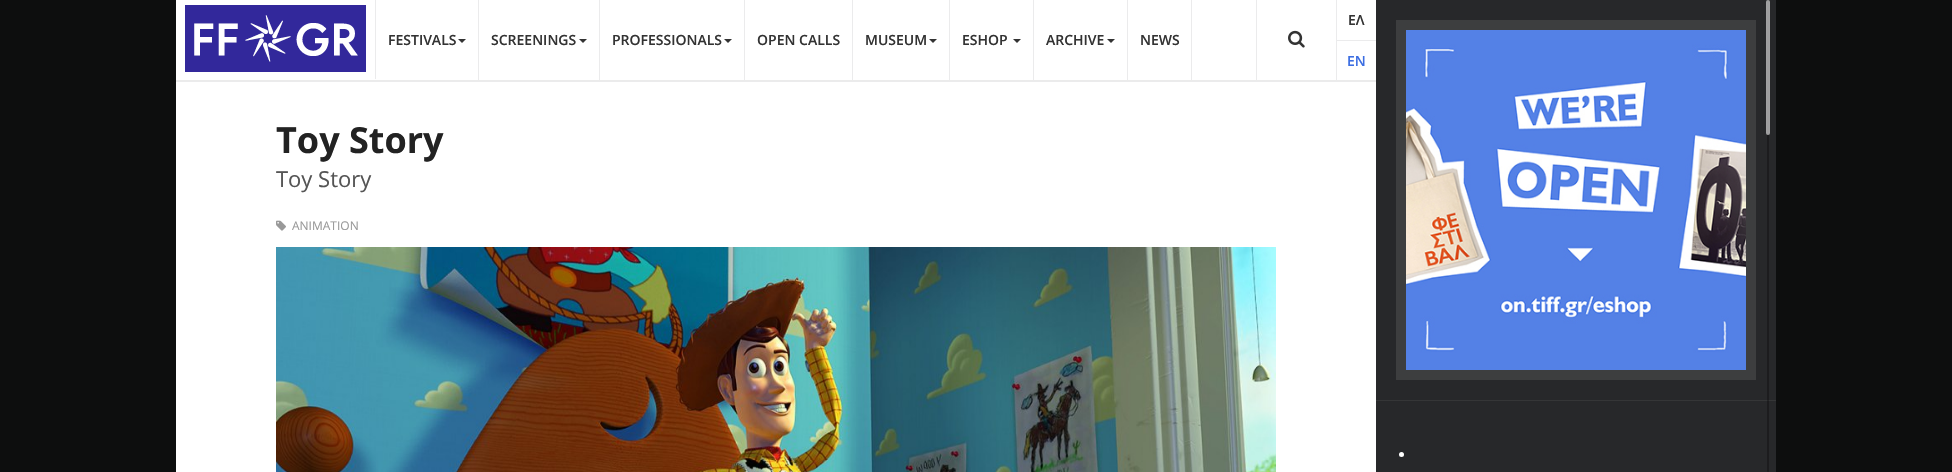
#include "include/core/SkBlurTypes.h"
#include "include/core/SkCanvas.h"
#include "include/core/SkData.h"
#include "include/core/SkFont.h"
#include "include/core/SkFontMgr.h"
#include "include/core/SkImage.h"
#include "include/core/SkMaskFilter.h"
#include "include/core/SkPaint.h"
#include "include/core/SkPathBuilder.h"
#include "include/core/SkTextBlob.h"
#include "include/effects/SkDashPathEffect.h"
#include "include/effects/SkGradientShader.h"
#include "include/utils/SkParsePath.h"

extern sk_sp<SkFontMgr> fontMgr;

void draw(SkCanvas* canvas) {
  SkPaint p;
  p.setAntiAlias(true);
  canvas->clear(SkColorSetRGB(13, 14, 14));
  p.setColor(SK_ColorWHITE);
  canvas->drawRect(SkRect::MakeLTRB(176, 0, 1376, 472), p);
  p.setColor(SkColorSetRGB(235, 235, 236));
  canvas->drawRect(SkRect::MakeLTRB(375, 0, 376, 79), p);
  canvas->drawImageRect(SkImages::DeferredFromEncodedData(SkData::MakeFromFileName("images/1.png")), SkRect::MakeLTRB(185, 5, 366, 72), SkSamplingOptions());
  canvas->drawRect(SkRect::MakeLTRB(478, 0, 479, 80), p);
  p.setColor(SkColorSetRGB(51, 51, 51));
  canvas->drawPath(SkPathBuilder().moveTo(458, 39).lineTo(466, 39).lineTo(462, 43).close().detach(), p);
  p.setColor(SkColorSetRGB(235, 235, 236));
  canvas->drawRect(SkRect::MakeLTRB(599, 0, 600, 80), p);
  p.setColor(SkColorSetRGB(51, 51, 51));
  canvas->drawPath(SkPathBuilder().moveTo(579, 39).lineTo(587, 39).lineTo(583, 43).close().detach(), p);
  p.setColor(SkColorSetRGB(235, 235, 236));
  canvas->drawRect(SkRect::MakeLTRB(744, 0, 745, 80), p);
  p.setColor(SkColorSetRGB(51, 51, 51));
  canvas->drawPath(SkPathBuilder().moveTo(724, 39).lineTo(732, 39).lineTo(728, 43).close().detach(), p);
  p.setColor(SkColorSetRGB(235, 235, 236));
  canvas->drawRect(SkRect::MakeLTRB(852, 0, 853, 80), p);
  canvas->drawRect(SkRect::MakeLTRB(949, 0, 950, 80), p);
  p.setColor(SkColorSetRGB(51, 51, 51));
  canvas->drawPath(SkPathBuilder().moveTo(929, 39).lineTo(937, 39).lineTo(933, 43).close().detach(), p);
  p.setColor(SkColorSetRGB(235, 235, 236));
  canvas->drawRect(SkRect::MakeLTRB(1033, 0, 1034, 80), p);
  p.setColor(SkColorSetRGB(51, 51, 51));
  canvas->drawPath(SkPathBuilder().moveTo(1013, 39).lineTo(1021, 39).lineTo(1017, 43).close().detach(), p);
  p.setColor(SkColorSetRGB(235, 235, 236));
  canvas->drawRect(SkRect::MakeLTRB(1127, 0, 1128, 80), p);
  p.setColor(SkColorSetRGB(51, 51, 51));
  canvas->drawPath(SkPathBuilder().moveTo(1107, 39).lineTo(1115, 39).lineTo(1111, 43).close().detach(), p);
  p.setColor(SkColorSetRGB(235, 235, 236));
  canvas->drawRect(SkRect::MakeLTRB(1191, 0, 1192, 80), p);
  canvas->drawRect(SkRect::MakeLTRB(1256, 0, 1257, 80), p);
  canvas->drawImageRect(SkImages::DeferredFromEncodedData(SkData::MakeFromFileName("images/2.png")), SkRect::MakeLTRB(1288, 30, 1305, 48), SkSamplingOptions());
  canvas->drawRect(SkRect::MakeLTRB(1336, 0, 1337, 40), p);
  canvas->drawRect(SkRect::MakeLTRB(1336, 40, 1376, 41), p);
  canvas->drawRect(SkRect::MakeLTRB(1336, 40, 1337, 80), p);
  p.setColor(SkColorSetRGB(235, 235, 235));
  canvas->drawRect(SkRect::MakeLTRB(176, 80, 1376, 81), p);
  p.setColor(SkColorSetRGB(235, 235, 236));
  canvas->drawRect(SkRect::MakeLTRB(176, 81, 1376, 82), p);
  canvas->drawImageRect(SkImages::DeferredFromEncodedData(SkData::MakeFromFileName("images/3.png")), SkRect::MakeLTRB(276, 220, 286, 231), SkSamplingOptions());
  canvas->drawImageRect(SkImages::DeferredFromEncodedData(SkData::MakeFromFileName("images/4.png")), SkRect::MakeLTRB(276, 247, 1276, 472), SkSamplingOptions());
  p.setColor(SkColorSetRGB(39, 40, 42));
  canvas->drawRect(SkRect::MakeLTRB(1376, 0, 1776, 472), p);
  p.setColor(SkColorSetRGB(53, 54, 55));
  canvas->drawRect(SkRect::MakeLTRB(1376, 400, 1776, 401), p);
  p.setColor(SkColorSetARGB(77, 0, 0, 0));
  canvas->drawRoundRect(SkRect::MakeLTRB(1767, 0, 1769, 472), 1, 1, p);
  p.setColor(SkColorSetARGB(191, 201, 201, 202));
  canvas->drawRoundRect(SkRect::MakeLTRB(1766, 0, 1770, 135), 2, 2, p);
  p.setColor(SkColorSetRGB(61, 62, 63));
  canvas->drawRect(SkRect::MakeLTRB(1396, 20, 1756, 380), p);
  canvas->drawImageRect(SkImages::DeferredFromEncodedData(SkData::MakeFromFileName("images/5.png")), SkRect::MakeLTRB(1406, 30, 1746, 370), SkSamplingOptions());
  p.setColor(SK_ColorWHITE);
  canvas->drawCircle(1401.5f, 454.5f, 2.5f, p);
  SkFont font1(fontMgr->matchFamilyStyle("Open Sans", SkFontStyle(600, SkFontStyle::kNormal_Width, SkFontStyle::kUpright_Slant)), 14);
  font1.setSubpixel(true);
  p.setColor(SkColorSetRGB(51, 51, 51));
  canvas->drawString("FESTIVALS", 388, 45, font1, p);
  canvas->drawString("SCREENINGS", 491, 45, font1, p);
  canvas->drawString("PROFESSIONALS", 612, 45, font1, p);
  canvas->drawString("OPEN CALLS", 757, 45, font1, p);
  canvas->drawString("MUSEUM", 865, 45, font1, p);
  canvas->drawString("ESHOP", 962, 45, font1, p);
  canvas->drawString("ARCHIVE", 1046, 45, font1, p);
  canvas->drawString("NEWS", 1140, 45, font1, p);
  canvas->drawString("ΕΛ", 1348, 25, font1, p);
  p.setColor(SkColorSetRGB(60, 110, 226));
  canvas->drawString("EN", 1347, 66, font1, p);
  SkFont font2(fontMgr->matchFamilyStyle("Open Sans", SkFontStyle::Bold()), 36);
  font2.setSubpixel(true);
  p.setColor(SkColorSetRGB(34, 34, 34));
  canvas->drawString("Toy Story", 276, 153, font2, p);
  SkFont font3(fontMgr->matchFamilyStyle("Open Sans", SkFontStyle::Normal()), 22);
  font3.setSubpixel(true);
  p.setColor(SkColorSetRGB(85, 85, 85));
  canvas->drawString("Toy Story", 276, 187, font3, p);
  SkFont font4(fontMgr->matchFamilyStyle("Open Sans", SkFontStyle::Normal()), 12);
  font4.setSubpixel(true);
  p.setColor(SkColorSetRGB(153, 153, 153));
  canvas->drawString("ANIMATION", 292, 230, font4, p);
}
